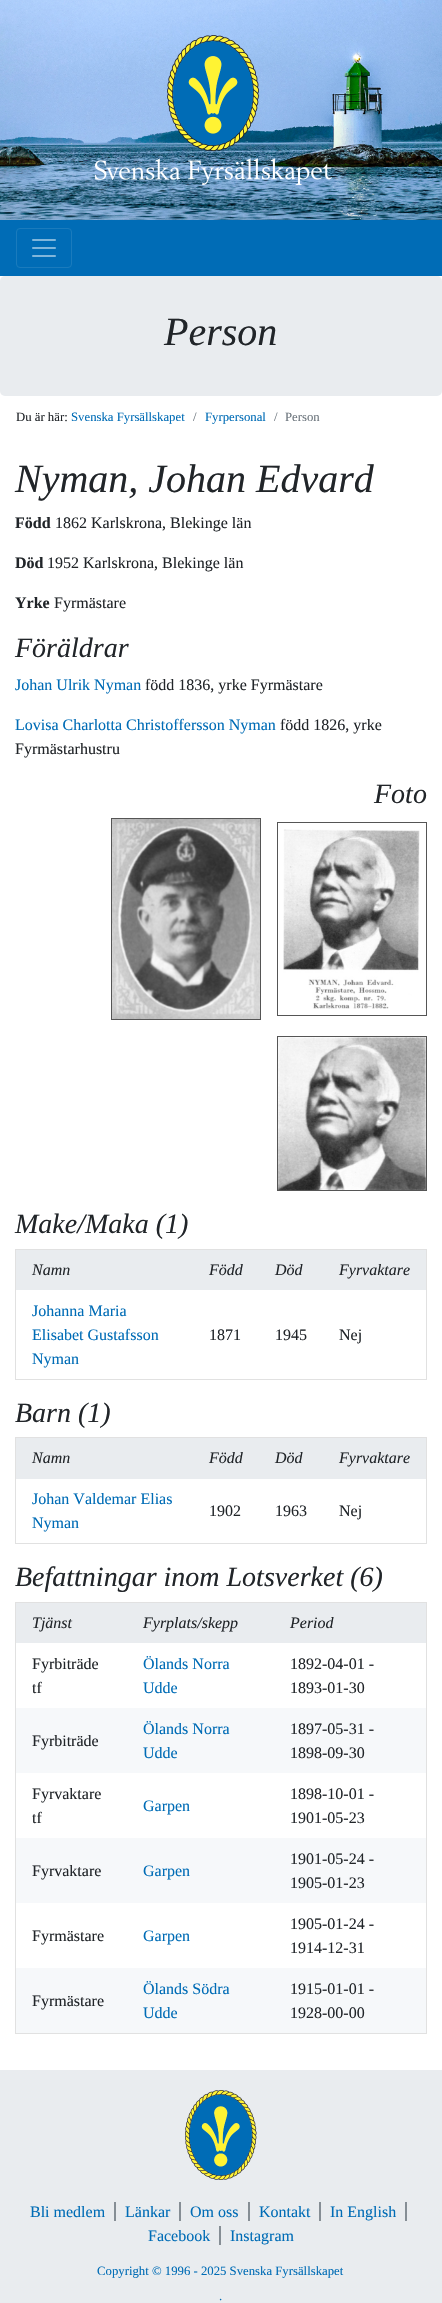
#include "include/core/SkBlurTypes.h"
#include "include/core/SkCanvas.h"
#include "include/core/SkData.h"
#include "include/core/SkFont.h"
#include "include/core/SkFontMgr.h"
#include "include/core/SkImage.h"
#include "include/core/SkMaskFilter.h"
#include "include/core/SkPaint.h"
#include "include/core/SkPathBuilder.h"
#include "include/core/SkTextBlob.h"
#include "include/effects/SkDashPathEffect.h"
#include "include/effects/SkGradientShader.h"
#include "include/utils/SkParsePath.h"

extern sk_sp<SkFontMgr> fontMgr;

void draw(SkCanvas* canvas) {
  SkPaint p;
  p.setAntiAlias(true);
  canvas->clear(SK_ColorWHITE);
  canvas->drawImageRect(SkImages::DeferredFromEncodedData(SkData::MakeFromFileName("images/1.png")), SkRect::MakeLTRB(0, 0, 442, 220), SkSamplingOptions());
  canvas->drawImageRect(SkImages::DeferredFromEncodedData(SkData::MakeFromFileName("images/2.png")), SkRect::MakeLTRB(95, 35, 332, 185), SkSamplingOptions());
  p.setColor(SkColorSetRGB(0, 108, 182));
  canvas->drawRect(SkRect::MakeLTRB(0, 220, 442, 276), p);
  p.setStyle(SkPaint::kStroke_Style);
  p.setStrokeWidth(1);
  p.setColor(SkColorSetRGB(26, 123, 189));
  canvas->drawRoundRect(SkRect::MakeLTRB(16.5f, 228.5f, 71.5f, 267.5f), 3.5f, 3.5f, p);
  canvas->drawImageRect(SkImages::DeferredFromEncodedData(SkData::MakeFromFileName("images/3.png")), SkRect::MakeLTRB(32, 239, 56, 257), SkSamplingOptions());
  p.setStyle(SkPaint::kFill_Style);
  p.setColor(SkColorSetRGB(233, 236, 239));
  canvas->drawRoundRect(SkRect::MakeLTRB(0, 276, 442, 396), 5, 5, p);
  p.setStyle(SkPaint::kStroke_Style);
  p.setColor(SkColorSetRGB(85, 85, 85));
  canvas->drawRect(SkRect::MakeLTRB(111.5f, 818.5f, 260.5f, 1019.5f), p);
  canvas->drawImageRect(SkImages::DeferredFromEncodedData(SkData::MakeFromFileName("images/4.png")), SkRect::MakeLTRB(112, 819, 260, 1019), SkSamplingOptions());
  canvas->drawRect(SkRect::MakeLTRB(277.5f, 822.5f, 426.5f, 1015.5f), p);
  canvas->drawImageRect(SkImages::DeferredFromEncodedData(SkData::MakeFromFileName("images/5.png")), SkRect::MakeLTRB(283, 829, 420, 1009), SkSamplingOptions());
  canvas->drawRect(SkRect::MakeLTRB(277.5f, 1036.5f, 426.5f, 1190.5f), p);
  canvas->drawImageRect(SkImages::DeferredFromEncodedData(SkData::MakeFromFileName("images/6.png")), SkRect::MakeLTRB(278, 1037, 426, 1190), SkSamplingOptions());
  p.setColor(SkColorSetRGB(225, 225, 225));
  canvas->drawRect(SkRect::MakeLTRB(15.5f, 1249.5f, 426.5f, 1379.5f), p);
  p.setStyle(SkPaint::kFill_Style);
  p.setColor(SkColorSetRGB(233, 236, 239));
  canvas->drawRect(SkRect::MakeLTRB(16, 1250, 426, 1290), p);
  p.setStyle(SkPaint::kStroke_Style);
  p.setColor(SkColorSetRGB(225, 225, 225));
  canvas->drawRect(SkRect::MakeLTRB(15.5f, 1437.5f, 426.5f, 1543.5f), p);
  p.setStyle(SkPaint::kFill_Style);
  p.setColor(SkColorSetRGB(233, 236, 239));
  canvas->drawRect(SkRect::MakeLTRB(16, 1438, 426, 1479), p);
  p.setStyle(SkPaint::kStroke_Style);
  p.setColor(SkColorSetRGB(225, 225, 225));
  canvas->drawRect(SkRect::MakeLTRB(15.5f, 1602.5f, 426.5f, 2033.5f), p);
  p.setStyle(SkPaint::kFill_Style);
  p.setColor(SkColorSetRGB(233, 236, 239));
  canvas->drawRect(SkRect::MakeLTRB(16, 1603, 426, 1643), p);
  p.setColor(SkColorSetRGB(246, 248, 250));
  canvas->drawRect(SkRect::MakeLTRB(16, 1708, 426, 1773), p);
  canvas->drawRect(SkRect::MakeLTRB(16, 1838, 426, 1903), p);
  canvas->drawRect(SkRect::MakeLTRB(16, 1968, 426, 2033), p);
  p.setColor(SkColorSetRGB(233, 236, 239));
  canvas->drawRect(SkRect::MakeLTRB(0, 2070, 442, 2303), p);
  canvas->drawImageRect(SkImages::DeferredFromEncodedData(SkData::MakeFromFileName("images/7.png")), SkRect::MakeLTRB(185, 2090, 257, 2180), SkSamplingOptions());
  SkFont font1(fontMgr->matchFamilyStyle("Liberation Serif", SkFontStyle::Italic()), 40);
  font1.setSubpixel(true);
  p.setColor(SkColorSetRGB(33, 37, 41));
  canvas->drawString("Person", 164, 345, font1, p);
  SkFont font2(fontMgr->matchFamilyStyle("Liberation Serif", SkFontStyle::Normal()), 12.75f);
  font2.setSubpixel(true);
  canvas->drawString("Du är här:", 16, 421, font2, p);
  p.setColor(SkColorSetRGB(0, 108, 182));
  canvas->drawString("Svenska Fyrsällskapet", 71, 421, font2, p);
  p.setColor(SkColorSetRGB(108, 117, 125));
  canvas->drawString("/", 193, 421, font2, p);
  p.setColor(SkColorSetRGB(0, 108, 182));
  canvas->drawString("Fyrpersonal", 205, 421, font2, p);
  p.setColor(SkColorSetRGB(108, 117, 125));
  canvas->drawString("/", 274, 421, font2, p);
  canvas->drawString("Person", 285, 421, font2, p);
  p.setColor(SkColorSetRGB(33, 37, 41));
  canvas->drawString("Nyman, Johan Edvard", 15, 492, font1, p);
  SkFont font3(fontMgr->matchFamilyStyle("Liberation Serif", SkFontStyle::Bold()), 16);
  font3.setSubpixel(true);
  canvas->drawString("Född", 15, 528, font3, p);
  SkFont font4(fontMgr->matchFamilyStyle("Liberation Serif", SkFontStyle::Normal()), 16);
  font4.setSubpixel(true);
  canvas->drawString("1862 Karlskrona, Blekinge län", 55, 528, font4, p);
  canvas->drawString("Död", 15, 568, font3, p);
  canvas->drawString("1952 Karlskrona, Blekinge län", 47, 568, font4, p);
  canvas->drawString("Yrke", 15, 608, font3, p);
  canvas->drawString("Fyrmästare", 54, 608, font4, p);
  SkFont font5(fontMgr->matchFamilyStyle("Liberation Serif", SkFontStyle::Italic()), 28);
  font5.setSubpixel(true);
  canvas->drawString("Föräldrar", 15, 657, font5, p);
  p.setColor(SkColorSetRGB(0, 108, 182));
  canvas->drawString("Johan Ulrik Nyman", 15, 690, font4, p);
  p.setColor(SkColorSetRGB(33, 37, 41));
  canvas->drawString("född 1836, yrke Fyrmästare", 145, 690, font4, p);
  p.setColor(SkColorSetRGB(0, 108, 182));
  canvas->drawString("Lovisa Charlotta Christoffersson Nyman", 15, 730, font4, p);
  p.setColor(SkColorSetRGB(33, 37, 41));
  canvas->drawString("född 1826, yrke", 280, 730, font4, p);
  canvas->drawString("Fyrmästarhustru", 15, 754, font4, p);
  canvas->drawString("Foto", 374, 803, font5, p);
  canvas->drawString("Make/Maka (1)", 15, 1233, font5, p);
  SkFont font6(fontMgr->matchFamilyStyle("Liberation Serif", SkFontStyle::Italic()), 16);
  font6.setSubpixel(true);
  canvas->drawString("Namn", 32, 1275, font6, p);
  canvas->drawString("Född", 209, 1275, font6, p);
  canvas->drawString("Död", 275, 1275, font6, p);
  canvas->drawString("Fyrvaktare", 339, 1275, font6, p);
  p.setColor(SkColorSetRGB(0, 108, 182));
  canvas->drawString("Johanna Maria", 32, 1316, font4, p);
  canvas->drawString("Elisabet Gustafsson", 32, 1340, font4, p);
  canvas->drawString("Nyman", 32, 1364, font4, p);
  p.setColor(SkColorSetRGB(33, 37, 41));
  canvas->drawString("1871", 209, 1340, font4, p);
  canvas->drawString("1945", 275, 1340, font4, p);
  canvas->drawString("Nej", 339, 1340, font4, p);
  canvas->drawString("Barn (1)", 15, 1422, font5, p);
  canvas->drawString("Namn", 32, 1463, font6, p);
  canvas->drawString("Född", 209, 1463, font6, p);
  canvas->drawString("Död", 275, 1463, font6, p);
  canvas->drawString("Fyrvaktare", 339, 1463, font6, p);
  p.setColor(SkColorSetRGB(0, 108, 182));
  canvas->drawString("Johan Valdemar Elias", 32, 1504, font4, p);
  canvas->drawString("Nyman", 32, 1528, font4, p);
  p.setColor(SkColorSetRGB(33, 37, 41));
  canvas->drawString("1902", 209, 1516, font4, p);
  canvas->drawString("1963", 275, 1516, font4, p);
  canvas->drawString("Nej", 339, 1516, font4, p);
  canvas->drawString("Befattningar inom Lotsverket (6)", 15, 1586, font5, p);
  canvas->drawString("Tjänst", 32, 1628, font6, p);
  canvas->drawString("Fyrplats/skepp", 143, 1628, font6, p);
  canvas->drawString("Period", 290, 1628, font6, p);
  canvas->drawString("Fyrbiträde", 32, 1669, font4, p);
  canvas->drawString("tf", 32, 1693, font4, p);
  p.setColor(SkColorSetRGB(0, 108, 182));
  canvas->drawString("Ölands Norra", 143, 1669, font4, p);
  canvas->drawString("Udde", 143, 1693, font4, p);
  p.setColor(SkColorSetRGB(33, 37, 41));
  canvas->drawString("1892-04-01 -", 290, 1669, font4, p);
  canvas->drawString("1893-01-30", 290, 1693, font4, p);
  canvas->drawString("Fyrbiträde", 32, 1746, font4, p);
  p.setColor(SkColorSetRGB(0, 108, 182));
  canvas->drawString("Ölands Norra", 143, 1734, font4, p);
  canvas->drawString("Udde", 143, 1758, font4, p);
  p.setColor(SkColorSetRGB(33, 37, 41));
  canvas->drawString("1897-05-31 -", 290, 1734, font4, p);
  canvas->drawString("1898-09-30", 290, 1758, font4, p);
  canvas->drawString("Fyrvaktare", 32, 1799, font4, p);
  canvas->drawString("tf", 32, 1823, font4, p);
  p.setColor(SkColorSetRGB(0, 108, 182));
  canvas->drawString("Garpen", 143, 1811, font4, p);
  p.setColor(SkColorSetRGB(33, 37, 41));
  canvas->drawString("1898-10-01 -", 290, 1799, font4, p);
  canvas->drawString("1901-05-23", 290, 1823, font4, p);
  canvas->drawString("Fyrvaktare", 32, 1876, font4, p);
  p.setColor(SkColorSetRGB(0, 108, 182));
  canvas->drawString("Garpen", 143, 1876, font4, p);
  p.setColor(SkColorSetRGB(33, 37, 41));
  canvas->drawString("1901-05-24 -", 290, 1864, font4, p);
  canvas->drawString("1905-01-23", 290, 1888, font4, p);
  canvas->drawString("Fyrmästare", 32, 1941, font4, p);
  p.setColor(SkColorSetRGB(0, 108, 182));
  canvas->drawString("Garpen", 143, 1941, font4, p);
  p.setColor(SkColorSetRGB(33, 37, 41));
  canvas->drawString("1905-01-24 -", 290, 1929, font4, p);
  canvas->drawString("1914-12-31", 290, 1953, font4, p);
  canvas->drawString("Fyrmästare", 32, 2006, font4, p);
  p.setColor(SkColorSetRGB(0, 108, 182));
  canvas->drawString("Ölands Södra", 143, 1994, font4, p);
  canvas->drawString("Udde", 143, 2018, font4, p);
  p.setColor(SkColorSetRGB(33, 37, 41));
  canvas->drawString("1915-01-01 -", 290, 1994, font4, p);
  canvas->drawString("1928-00-00", 290, 2018, font4, p);
  p.setColor(SkColorSetRGB(0, 108, 182));
  canvas->drawString("Bli medlem", 30, 2217, font4, p);
  SkFont font7(fontMgr->matchFamilyStyle("DejaVu Sans", SkFontStyle::Normal()), 16);
  font7.setSubpixel(true);
  p.setColor(SkColorSetRGB(108, 117, 125));
  canvas->drawString("⎪", 109, 2217, font7, p);
  p.setColor(SkColorSetRGB(0, 108, 182));
  canvas->drawString("Länkar", 125, 2217, font4, p);
  p.setColor(SkColorSetRGB(108, 117, 125));
  canvas->drawString("⎪", 174, 2217, font7, p);
  p.setColor(SkColorSetRGB(0, 108, 182));
  canvas->drawString("Om oss", 190, 2217, font4, p);
  p.setColor(SkColorSetRGB(108, 117, 125));
  canvas->drawString("⎪", 243, 2217, font7, p);
  p.setColor(SkColorSetRGB(0, 108, 182));
  canvas->drawString("Kontakt", 259, 2217, font4, p);
  p.setColor(SkColorSetRGB(108, 117, 125));
  canvas->drawString("⎪", 314, 2217, font7, p);
  p.setColor(SkColorSetRGB(0, 108, 182));
  canvas->drawString("In English", 330, 2217, font4, p);
  p.setColor(SkColorSetRGB(108, 117, 125));
  canvas->drawString("⎪", 400, 2217, font7, p);
  p.setColor(SkColorSetRGB(0, 108, 182));
  canvas->drawString("Facebook", 148, 2241, font4, p);
  p.setColor(SkColorSetRGB(108, 117, 125));
  canvas->drawString("⎪", 214, 2241, font7, p);
  p.setColor(SkColorSetRGB(0, 108, 182));
  canvas->drawString("Instagram", 230, 2241, font4, p);
  canvas->drawString("Copyright © 1996 - 2025 Svenska Fyrsällskapet", 97, 2275, font2, p);
  canvas->drawString(".", 219, 2300, font2, p);
}
